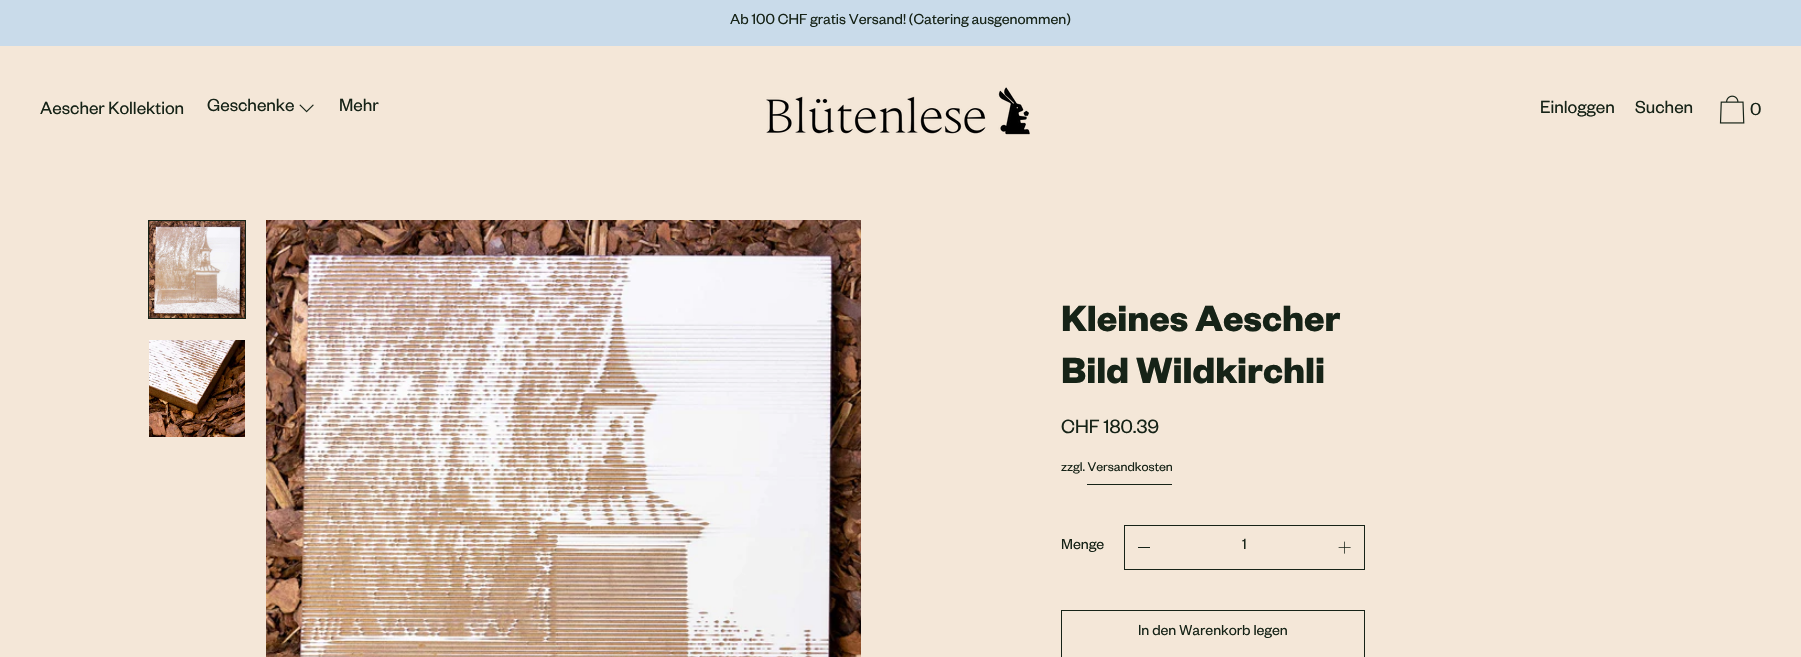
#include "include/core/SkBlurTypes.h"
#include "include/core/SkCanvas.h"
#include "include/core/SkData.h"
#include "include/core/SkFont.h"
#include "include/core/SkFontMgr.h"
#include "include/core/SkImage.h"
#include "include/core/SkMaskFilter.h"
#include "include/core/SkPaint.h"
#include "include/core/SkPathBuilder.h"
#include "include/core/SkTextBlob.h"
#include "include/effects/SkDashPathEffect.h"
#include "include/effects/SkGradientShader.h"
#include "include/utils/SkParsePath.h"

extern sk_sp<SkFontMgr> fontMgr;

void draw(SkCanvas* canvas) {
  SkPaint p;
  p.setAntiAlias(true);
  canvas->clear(SkColorSetRGB(244, 231, 216));
  p.setColor(SkColorSetRGB(201, 219, 234));
  canvas->drawRect(SkRect::MakeLTRB(0, 0, 1801, 46), p);
  canvas->drawImageRect(SkImages::DeferredFromEncodedData(SkData::MakeFromFileName("images/1.png")), SkRect::MakeLTRB(299, 104, 314, 113), SkSamplingOptions());
  canvas->drawImageRect(SkImages::DeferredFromEncodedData(SkData::MakeFromFileName("images/2.png")), SkRect::MakeLTRB(766, 87, 1030, 135), SkSamplingOptions());
  canvas->drawImageRect(SkImages::DeferredFromEncodedData(SkData::MakeFromFileName("images/3.png")), SkRect::MakeLTRB(1719, 95, 1745, 124), SkSamplingOptions());
  p.setStyle(SkPaint::kStroke_Style);
  p.setStrokeWidth(1);
  p.setColor(SkColorSetRGB(22, 35, 23));
  canvas->drawRect(SkRect::MakeLTRB(148.5f, 220.5f, 245.5f, 318.5f), p);
  canvas->drawImageRect(SkImages::DeferredFromEncodedData(SkData::MakeFromFileName("images/4.png")), SkRect::MakeLTRB(149, 221, 245, 318), SkSamplingOptions());
  canvas->drawImageRect(SkImages::DeferredFromEncodedData(SkData::MakeFromFileName("images/5.png")), SkRect::MakeLTRB(149, 340, 245, 437), SkSamplingOptions());
  canvas->drawImageRect(SkImages::DeferredFromEncodedData(SkData::MakeFromFileName("images/6.png")), SkRect::MakeLTRB(266, 220, 861, 657), SkSamplingOptions());
  p.setStyle(SkPaint::kFill_Style);
  canvas->drawRect(SkRect::MakeLTRB(1087, 484, 1172, 485), p);
  p.setStyle(SkPaint::kStroke_Style);
  canvas->drawRect(SkRect::MakeLTRB(1124.5f, 525.5f, 1364.5f, 569.5f), p);
  p.setStyle(SkPaint::kFill_Style);
  canvas->drawRect(SkRect::MakeLTRB(1138, 547, 1150, 548), p);
  canvas->drawImageRect(SkImages::DeferredFromEncodedData(SkData::MakeFromFileName("images/7.png")), SkRect::MakeLTRB(1338, 541, 1351, 554), SkSamplingOptions());
  p.setStyle(SkPaint::kStroke_Style);
  canvas->drawRect(SkRect::MakeLTRB(1061.5f, 610.5f, 1364.5f, 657.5f), p);
  SkFont font1(fontMgr->matchFamilyStyle("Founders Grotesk", SkFontStyle::Normal()), 16);
  font1.setSubpixel(true);
  p.setStyle(SkPaint::kFill_Style);
  canvas->drawString("Ab 100 CHF gratis Versand! (Catering ausgenommen)", 730, 24, font1, p);
  SkFont font2(fontMgr->matchFamilyStyle("Founders Grotesk", SkFontStyle::Normal()), 19.25f);
  font2.setSubpixel(true);
  canvas->drawString("Aescher Kollektion", 40, 114, font2, p);
  canvas->drawString("Geschenke", 207, 111, font2, p);
  canvas->drawString("Mehr", 339, 111, font2, p);
  canvas->drawString("Einloggen", 1540, 113, font2, p);
  canvas->drawString("Suchen", 1635, 113, font2, p);
  canvas->drawString("0", 1750, 115, font2, p);
  SkFont font3(fontMgr->matchFamilyStyle("Founders Grotesk", SkFontStyle::Bold()), 40);
  font3.setSubpixel(true);
  canvas->drawString("Kleines Aescher", 1061, 331, font3, p);
  canvas->drawString("Bild Wildkirchli", 1061, 383, font3, p);
  SkFont font4(fontMgr->matchFamilyStyle("Founders Grotesk", SkFontStyle::Normal()), 21);
  font4.setSubpixel(true);
  canvas->drawString("CHF 180.39", 1061, 433, font4, p);
  SkFont font5(fontMgr->matchFamilyStyle("Founders Grotesk", SkFontStyle::Normal()), 14);
  font5.setSubpixel(true);
  canvas->drawString("zzgl. Versandkosten", 1061, 471, font5, p);
  canvas->drawString("Menge", 1061, 549, font1, p);
  canvas->drawString("1", 1242, 549, font1, p);
  canvas->drawString("In den Warenkorb legen", 1138, 635, font1, p);
}
